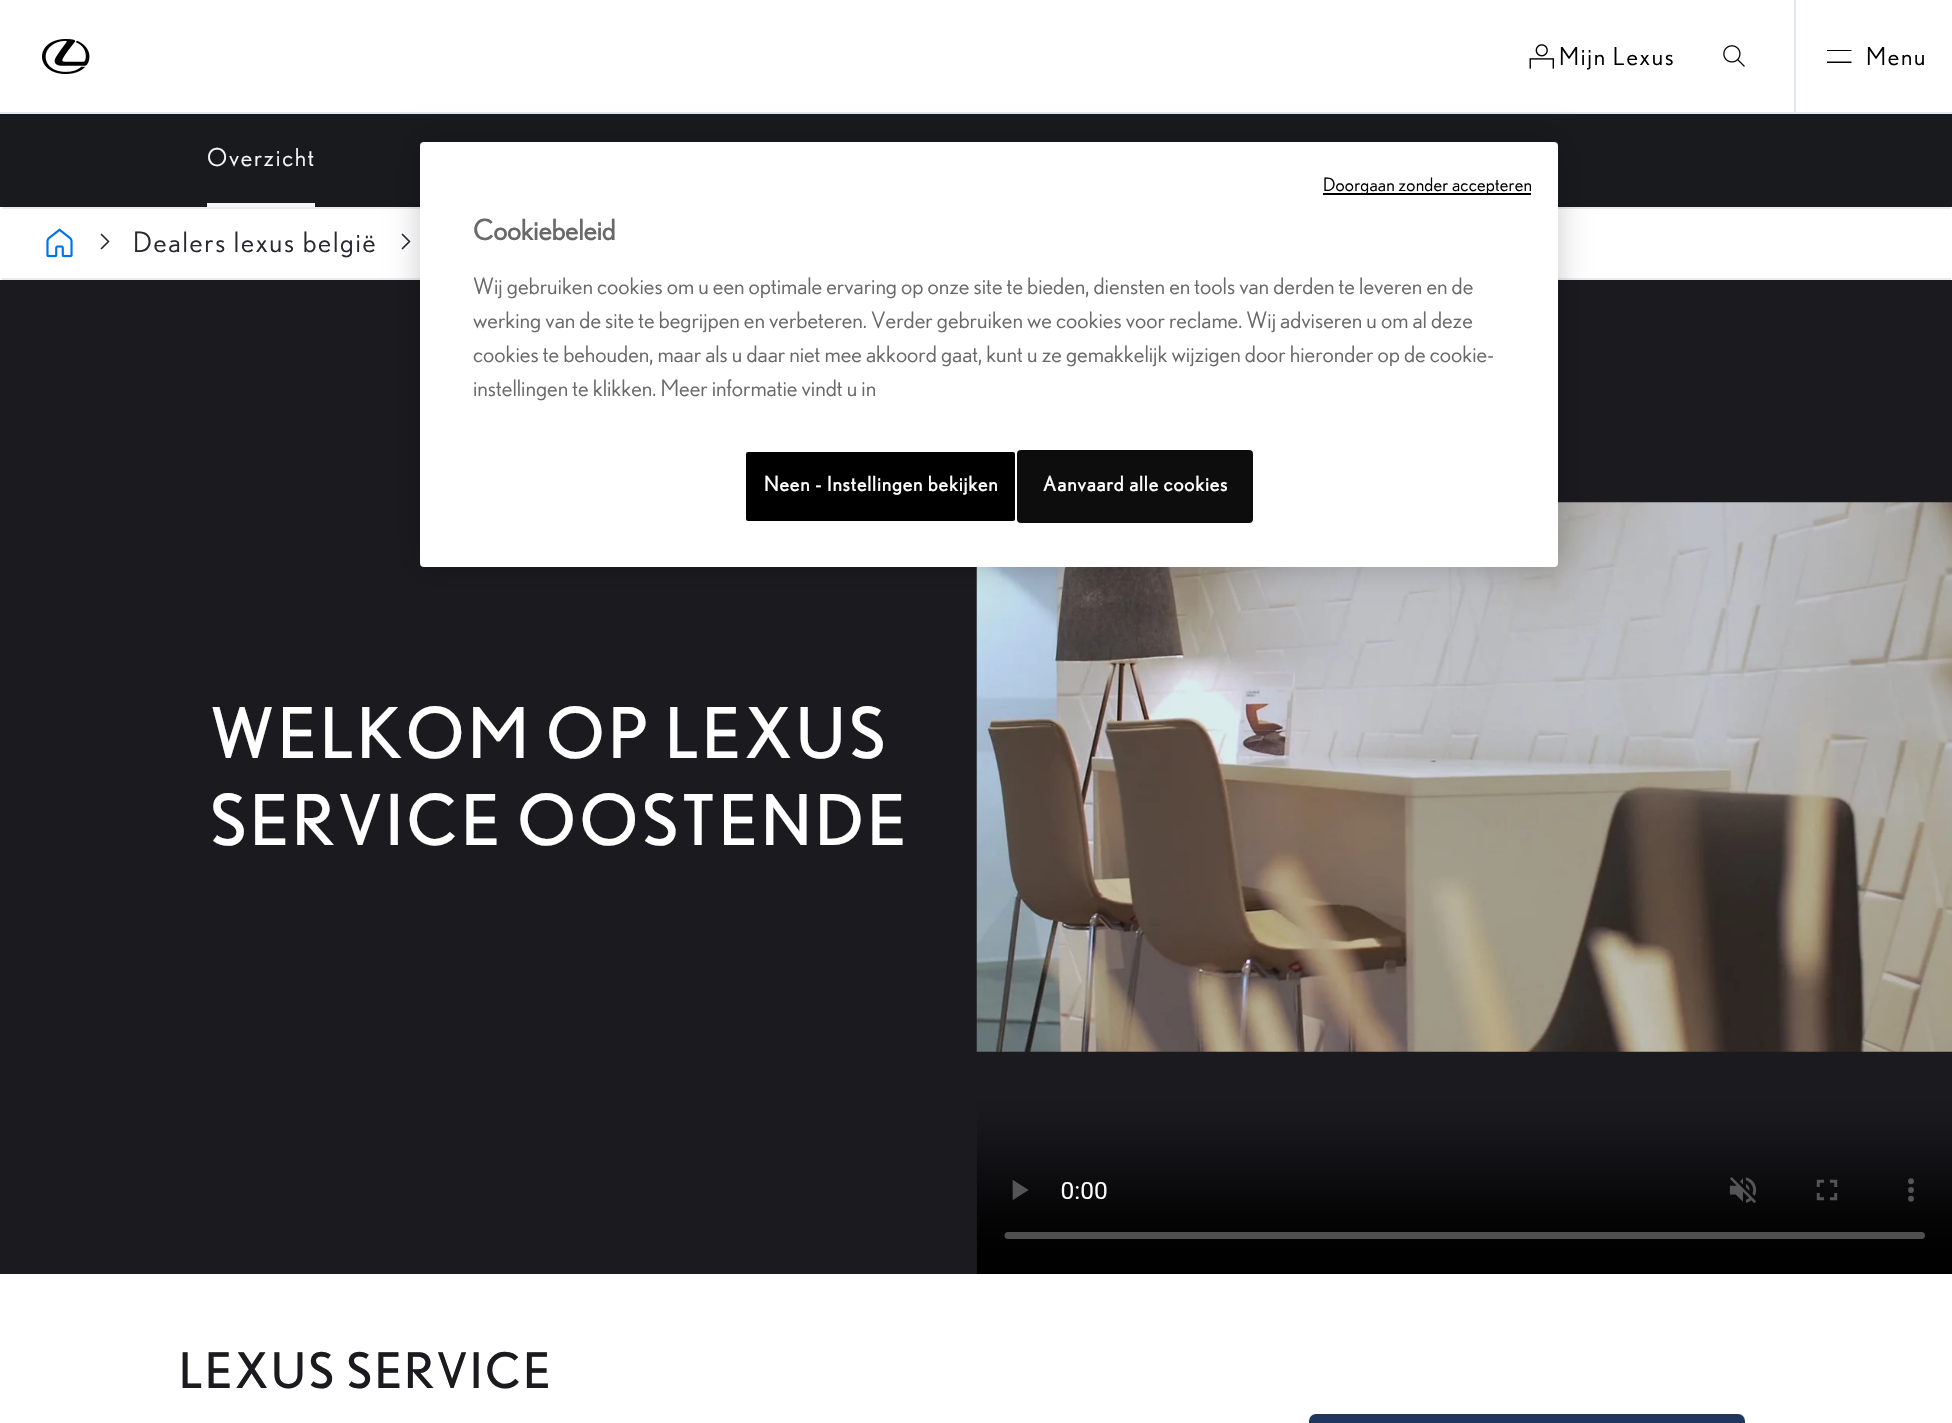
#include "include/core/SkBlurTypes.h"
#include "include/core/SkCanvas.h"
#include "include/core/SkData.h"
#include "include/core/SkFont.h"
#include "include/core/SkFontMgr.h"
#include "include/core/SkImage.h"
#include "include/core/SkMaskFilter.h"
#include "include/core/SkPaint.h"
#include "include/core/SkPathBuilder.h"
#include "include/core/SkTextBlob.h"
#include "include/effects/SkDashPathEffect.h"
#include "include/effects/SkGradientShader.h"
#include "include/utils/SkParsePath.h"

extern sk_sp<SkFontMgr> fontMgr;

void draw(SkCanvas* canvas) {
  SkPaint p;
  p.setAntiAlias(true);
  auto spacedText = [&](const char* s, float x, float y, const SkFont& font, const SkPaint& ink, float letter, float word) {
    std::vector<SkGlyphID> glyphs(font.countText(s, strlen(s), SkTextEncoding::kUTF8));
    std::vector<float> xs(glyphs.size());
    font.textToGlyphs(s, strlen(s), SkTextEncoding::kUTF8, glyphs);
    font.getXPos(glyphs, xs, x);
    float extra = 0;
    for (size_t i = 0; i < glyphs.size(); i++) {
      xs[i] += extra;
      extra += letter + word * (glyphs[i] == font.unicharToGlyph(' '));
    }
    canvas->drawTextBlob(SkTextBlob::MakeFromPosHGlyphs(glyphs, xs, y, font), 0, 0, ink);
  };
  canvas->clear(SK_ColorWHITE);
  canvas->drawImageRect(SkImages::DeferredFromEncodedData(SkData::MakeFromFileName("images/1.png")), SkRect::MakeLTRB(42, 39, 90, 74), SkSamplingOptions());
  canvas->drawImageRect(SkImages::DeferredFromEncodedData(SkData::MakeFromFileName("images/2.png")), SkRect::MakeLTRB(1529, 44, 1554, 69), SkSamplingOptions());
  canvas->drawImageRect(SkImages::DeferredFromEncodedData(SkData::MakeFromFileName("images/3.png")), SkRect::MakeLTRB(1723, 45, 1745, 67), SkSamplingOptions());
  p.setColor(SkColorSetRGB(226, 232, 239));
  canvas->drawRect(SkRect::MakeLTRB(1794, 0, 1796, 112), p);
  p.setColor(SK_ColorBLACK);
  canvas->drawPath(SkPathBuilder().moveTo(1827, 51).lineTo(1851.5f, 51).lineTo(1851.5f, 50).lineTo(1827, 50).close().moveTo(1827, 63).lineTo(1851.5f, 63).lineTo(1851.5f, 61.5f).lineTo(1827, 61.5f).close().detach(), p);
  p.setColor(SkColorSetRGB(226, 232, 239));
  canvas->drawRect(SkRect::MakeLTRB(0, 112, 1952, 114), p);
  p.setColor(SkColorSetRGB(25, 26, 30));
  canvas->drawRect(SkRect::MakeLTRB(0, 114, 1952, 207), p);
  p.setColor(SkColorSetRGB(244, 246, 251));
  canvas->drawRect(SkRect::MakeLTRB(207, 203, 315, 207), p);
  p.setColor(SkColorSetRGB(233, 236, 239));
  canvas->drawRect(SkRect::MakeLTRB(2, 207, 1951, 209), p);
  canvas->drawRect(SkRect::MakeLTRB(2, 278, 1951, 280), p);
  canvas->drawImageRect(SkImages::DeferredFromEncodedData(SkData::MakeFromFileName("images/4.png")), SkRect::MakeLTRB(46, 228, 73, 258), SkSamplingOptions());
  canvas->drawImageRect(SkImages::DeferredFromEncodedData(SkData::MakeFromFileName("images/5.png")), SkRect::MakeLTRB(100, 233, 110, 250), SkSamplingOptions());
  canvas->drawImageRect(SkImages::DeferredFromEncodedData(SkData::MakeFromFileName("images/5.png")), SkRect::MakeLTRB(401, 233, 411, 250), SkSamplingOptions());
  p.setColor(SkColorSetRGB(26, 26, 31));
  canvas->drawRect(SkRect::MakeLTRB(0, 280, 1952, 1274), p);
  canvas->drawImageRect(SkImages::DeferredFromEncodedData(SkData::MakeFromFileName("images/6.png")), SkRect::MakeLTRB(976, 502, 1952, 1274), SkSamplingOptions());
  p.setColor(SkColorSetRGB(32, 54, 92));
  canvas->drawRoundRect(SkRect::MakeLTRB(1309, 1414, 1745, 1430), 7, 7, p);
  p.setColor(SkColorSetARGB(51, 0, 0, 0));
  p.setMaskFilter(SkMaskFilter::MakeBlur(kNormal_SkBlurStyle, 16));
  canvas->drawRoundRect(SkRect::MakeLTRB(420, 142, 1558, 567), 4, 4, p);
  p.setMaskFilter(nullptr);
  p.setColor(SK_ColorWHITE);
  canvas->drawRoundRect(SkRect::MakeLTRB(420, 142, 1558, 567), 4, 4, p);
  p.setColor(SK_ColorBLACK);
  canvas->drawRect(SkRect::MakeLTRB(1323, 193, 1531, 195), p);
  canvas->drawRoundRect(SkRect::MakeLTRB(745, 451, 1016, 522), 3, 3, p);
  p.setStyle(SkPaint::kStroke_Style);
  p.setStrokeWidth(2);
  p.setColor(SK_ColorWHITE);
  canvas->drawRoundRect(SkRect::MakeLTRB(745, 451, 1016, 522), 3, 3, p);
  p.setStyle(SkPaint::kFill_Style);
  p.setColor(SkColorSetRGB(13, 13, 13));
  canvas->drawRoundRect(SkRect::MakeLTRB(1018, 451, 1252, 522), 3, 3, p);
  p.setStyle(SkPaint::kStroke_Style);
  canvas->drawRoundRect(SkRect::MakeLTRB(1018, 451, 1252, 522), 3, 3, p);
  SkFont font1(fontMgr->matchFamilyStyle("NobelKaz", SkFontStyle::Normal()), 24.5f);
  font1.setSubpixel(true);
  p.setStyle(SkPaint::kFill_Style);
  p.setColor(SK_ColorBLACK);
  spacedText("Mijn Lexus", 1559, 65, font1, p, 1.75f, 0);
  spacedText("Menu", 1866, 65, font1, p, 1.75f, 0);
  p.setColor(SkColorSetRGB(244, 246, 251));
  spacedText("Overzicht", 207, 166, font1, p, 1.75f, 0);
  SkFont font2(fontMgr->matchFamilyStyle("NobelKaz", SkFontStyle::Normal()), 28);
  font2.setSubpixel(true);
  p.setColor(SkColorSetRGB(40, 40, 48));
  spacedText("Dealers lexus belgië", 133, 252, font2, p, 1.75f, 0);
  SkFont font3(fontMgr->matchFamilyStyle("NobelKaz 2", SkFontStyle::Normal()), 70);
  font3.setSubpixel(true);
  p.setColor(SK_ColorWHITE);
  spacedText("WELKOM OP LEXUS", 210, 758, font3, p, 3.5f, 0);
  spacedText("SERVICE OOSTENDE", 210, 845, font3, p, 3.5f, 0);
  SkFont font4(fontMgr->matchFamilyStyle("NobelKaz 2", SkFontStyle::Normal()), 49);
  font4.setSubpixel(true);
  p.setColor(SkColorSetRGB(26, 26, 31));
  spacedText("LEXUS SERVICE", 179, 1388, font4, p, 2.6f, 0);
  SkFont font5(fontMgr->matchFamilyStyle("NobelKaz", SkFontStyle::Normal()), 18.4f);
  font5.setSubpixel(true);
  p.setColor(SK_ColorBLACK);
  spacedText("Doorgaan zonder accepteren", 1323, 191, font5, p, 0.2f, 0);
  SkFont font6(fontMgr->matchFamilyStyle("NobelKaz", SkFontStyle::Bold()), 28);
  font6.setSubpixel(true);
  p.setColor(SkColorSetRGB(105, 105, 105));
  canvas->drawString("Cookiebeleid", 473, 240, font6, p);
  SkFont font7(fontMgr->matchFamilyStyle("NobelKaz", SkFontStyle::Normal()), 22.75f);
  font7.setSubpixel(true);
  canvas->drawString("Wij gebruiken cookies om u een optimale ervaring op onze site te bieden, diensten en tools van derden te leveren en de", 473, 294, font7, p);
  canvas->drawString("werking van de site te begrijpen en verbeteren. Verder gebruiken we cookies voor reclame. Wij adviseren u om al deze", 473, 328, font7, p);
  canvas->drawString("cookies te behouden, maar als u daar niet mee akkoord gaat, kunt u ze gemakkelijk wijzigen door hieronder op de cookie-", 473, 362, font7, p);
  canvas->drawString("instellingen te klikken. Meer informatie vindt u in", 473, 396, font7, p);
  SkFont font8(fontMgr->matchFamilyStyle("NobelKaz", SkFontStyle::Bold()), 20);
  font8.setSubpixel(true);
  p.setColor(SK_ColorWHITE);
  spacedText("Neen - Instellingen bekijken", 764, 491, font8, p, 1, 0);
  spacedText("Aanvaard alle cookies", 1043, 491, font8, p, 1, 0);
}
